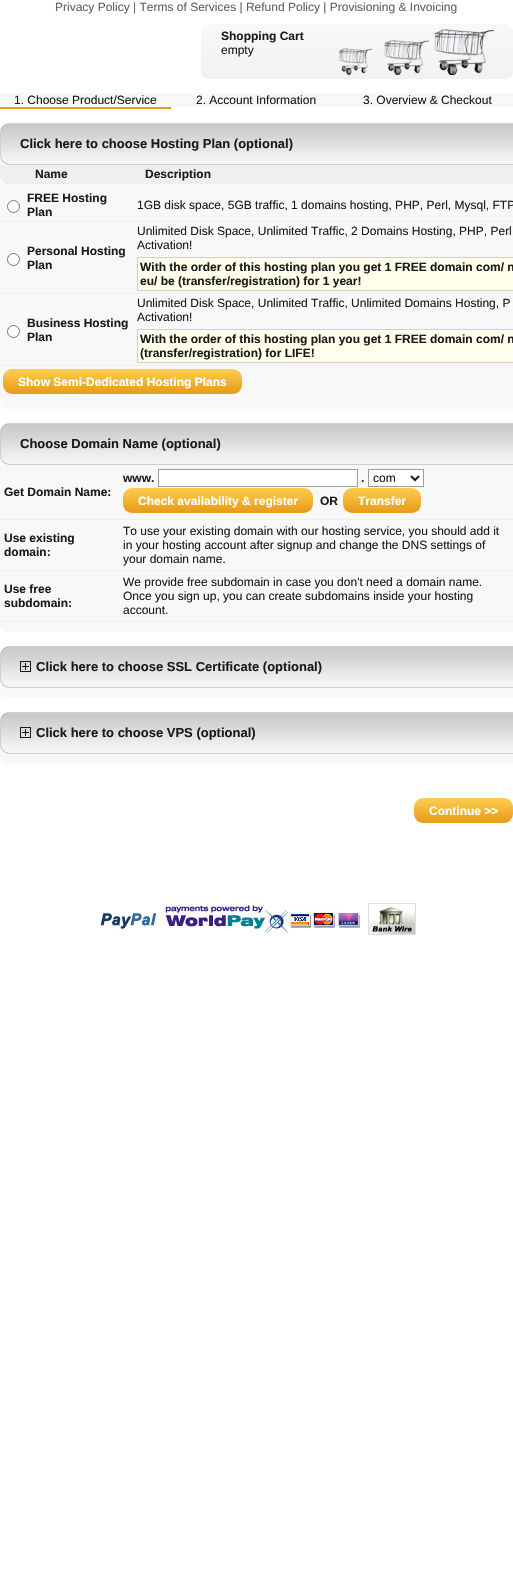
#include "include/core/SkBlurTypes.h"
#include "include/core/SkCanvas.h"
#include "include/core/SkData.h"
#include "include/core/SkFont.h"
#include "include/core/SkFontMgr.h"
#include "include/core/SkImage.h"
#include "include/core/SkMaskFilter.h"
#include "include/core/SkPaint.h"
#include "include/core/SkPathBuilder.h"
#include "include/core/SkTextBlob.h"
#include "include/effects/SkDashPathEffect.h"
#include "include/effects/SkGradientShader.h"
#include "include/utils/SkParsePath.h"

extern sk_sp<SkFontMgr> fontMgr;

void draw(SkCanvas* canvas) {
  SkPaint p;
  p.setAntiAlias(true);
  canvas->clear(SK_ColorWHITE);
  canvas->drawImageRect(SkImages::DeferredFromEncodedData(SkData::MakeFromFileName("images/1.png")), SkRect::MakeLTRB(201, 24, 513, 79), SkSamplingOptions());
  p.setColor(SkColorSetRGB(248, 248, 248));
  canvas->drawRect(SkRect::MakeLTRB(0, 93, 513, 107), p);
  p.setColor(SkColorSetRGB(233, 156, 27));
  canvas->drawRect(SkRect::MakeLTRB(0, 107, 171, 109), p);
  p.setColor(SkColorSetRGB(248, 248, 248));
  canvas->drawRect(SkRect::MakeLTRB(0, 161, 513, 409), p);
  canvas->drawImageRect(SkImages::DeferredFromEncodedData(SkData::MakeFromFileName("images/2.png")), SkRect::MakeLTRB(0, 404, 4, 409), SkSamplingOptions());
  canvas->drawImageRect(SkImages::DeferredFromEncodedData(SkData::MakeFromFileName("images/3.png")), SkRect::MakeLTRB(0, 123, 513, 165), SkSamplingOptions());
  canvas->drawImageRect(SkImages::DeferredFromEncodedData(SkData::MakeFromFileName("images/4.png")), SkRect::MakeLTRB(0, 165, 513, 184), SkSamplingOptions());
  p.setColor(SkColorSetRGB(239, 239, 239));
  canvas->drawRect(SkRect::MakeLTRB(0, 221, 513, 222), p);
  p.setColor(SK_ColorWHITE);
  canvas->drawCircle(13.5f, 206.5f, 6, p);
  p.setStyle(SkPaint::kStroke_Style);
  p.setStrokeWidth(1);
  p.setColor(SkColorSetRGB(118, 118, 118));
  canvas->drawCircle(13.5f, 206.5f, 6, p);
  p.setStyle(SkPaint::kFill_Style);
  p.setColor(SkColorSetRGB(255, 255, 236));
  canvas->drawRect(SkRect::MakeLTRB(137.5f, 257.5f, 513.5f, 290.5f), p);
  p.setStyle(SkPaint::kStroke_Style);
  p.setColor(SkColorSetRGB(207, 207, 207));
  canvas->drawRect(SkRect::MakeLTRB(137.5f, 257.5f, 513.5f, 290.5f), p);
  p.setStyle(SkPaint::kFill_Style);
  p.setColor(SkColorSetRGB(239, 239, 239));
  canvas->drawRect(SkRect::MakeLTRB(0, 293, 513, 294), p);
  p.setColor(SK_ColorWHITE);
  canvas->drawCircle(13.5f, 259.5f, 6, p);
  p.setStyle(SkPaint::kStroke_Style);
  p.setColor(SkColorSetRGB(118, 118, 118));
  canvas->drawCircle(13.5f, 259.5f, 6, p);
  p.setStyle(SkPaint::kFill_Style);
  p.setColor(SkColorSetRGB(255, 255, 236));
  canvas->drawRect(SkRect::MakeLTRB(137.5f, 329.5f, 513.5f, 362.5f), p);
  p.setStyle(SkPaint::kStroke_Style);
  p.setColor(SkColorSetRGB(207, 207, 207));
  canvas->drawRect(SkRect::MakeLTRB(137.5f, 329.5f, 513.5f, 362.5f), p);
  p.setStyle(SkPaint::kFill_Style);
  p.setColor(SkColorSetRGB(239, 239, 239));
  canvas->drawRect(SkRect::MakeLTRB(0, 365, 513, 366), p);
  p.setColor(SK_ColorWHITE);
  canvas->drawCircle(13.5f, 331.5f, 6, p);
  p.setStyle(SkPaint::kStroke_Style);
  p.setColor(SkColorSetRGB(118, 118, 118));
  canvas->drawCircle(13.5f, 331.5f, 6, p);
  canvas->drawImageRect(SkImages::DeferredFromEncodedData(SkData::MakeFromFileName("images/5.png")), SkRect::MakeLTRB(3, 369, 242, 394), SkSamplingOptions());
  p.setStyle(SkPaint::kFill_Style);
  p.setColor(SkColorSetRGB(248, 248, 248));
  canvas->drawRect(SkRect::MakeLTRB(0, 461, 513, 632), p);
  canvas->drawImageRect(SkImages::DeferredFromEncodedData(SkData::MakeFromFileName("images/2.png")), SkRect::MakeLTRB(0, 627, 4, 632), SkSamplingOptions());
  canvas->drawImageRect(SkImages::DeferredFromEncodedData(SkData::MakeFromFileName("images/3.png")), SkRect::MakeLTRB(0, 423, 513, 465), SkSamplingOptions());
  p.setColor(SkColorSetRGB(239, 239, 239));
  canvas->drawRect(SkRect::MakeLTRB(0, 519, 513, 520), p);
  p.setColor(SK_ColorWHITE);
  canvas->drawRect(SkRect::MakeLTRB(158.5f, 469.5f, 357.5f, 486.5f), p);
  p.setStyle(SkPaint::kStroke_Style);
  p.setColor(SkColorSetRGB(156, 156, 156));
  canvas->drawRect(SkRect::MakeLTRB(158.5f, 469.5f, 357.5f, 486.5f), p);
  p.setStyle(SkPaint::kFill_Style);
  p.setColor(SK_ColorWHITE);
  canvas->drawRect(SkRect::MakeLTRB(368.5f, 469.5f, 423.5f, 486.5f), p);
  p.setStyle(SkPaint::kStroke_Style);
  p.setColor(SkColorSetRGB(156, 156, 156));
  canvas->drawRect(SkRect::MakeLTRB(368.5f, 469.5f, 423.5f, 486.5f), p);
  p.setStrokeWidth(2);
  p.setColor(SkColorSetRGB(26, 26, 26));
  canvas->drawPath(SkPathBuilder().moveTo(411, 476).lineTo(415, 480).lineTo(419, 476).detach(), p);
  canvas->drawImageRect(SkImages::DeferredFromEncodedData(SkData::MakeFromFileName("images/6.png")), SkRect::MakeLTRB(123, 488, 313, 513), SkSamplingOptions());
  canvas->drawImageRect(SkImages::DeferredFromEncodedData(SkData::MakeFromFileName("images/7.png")), SkRect::MakeLTRB(343, 488, 421, 513), SkSamplingOptions());
  p.setStyle(SkPaint::kFill_Style);
  p.setColor(SkColorSetRGB(239, 239, 239));
  canvas->drawRect(SkRect::MakeLTRB(0, 570, 513, 571), p);
  canvas->drawRect(SkRect::MakeLTRB(0, 621, 513, 622), p);
  p.setColor(SkColorSetRGB(248, 248, 248));
  canvas->drawRect(SkRect::MakeLTRB(0, 684, 513, 698), p);
  canvas->drawImageRect(SkImages::DeferredFromEncodedData(SkData::MakeFromFileName("images/2.png")), SkRect::MakeLTRB(0, 693, 4, 698), SkSamplingOptions());
  canvas->drawImageRect(SkImages::DeferredFromEncodedData(SkData::MakeFromFileName("images/3.png")), SkRect::MakeLTRB(0, 646, 513, 688), SkSamplingOptions());
  canvas->drawImageRect(SkImages::DeferredFromEncodedData(SkData::MakeFromFileName("images/8.png")), SkRect::MakeLTRB(20, 661, 31, 672), SkSamplingOptions());
  canvas->drawRect(SkRect::MakeLTRB(0, 750, 513, 764), p);
  canvas->drawImageRect(SkImages::DeferredFromEncodedData(SkData::MakeFromFileName("images/2.png")), SkRect::MakeLTRB(0, 759, 4, 764), SkSamplingOptions());
  canvas->drawImageRect(SkImages::DeferredFromEncodedData(SkData::MakeFromFileName("images/3.png")), SkRect::MakeLTRB(0, 712, 513, 754), SkSamplingOptions());
  canvas->drawImageRect(SkImages::DeferredFromEncodedData(SkData::MakeFromFileName("images/8.png")), SkRect::MakeLTRB(20, 727, 31, 738), SkSamplingOptions());
  canvas->drawImageRect(SkImages::DeferredFromEncodedData(SkData::MakeFromFileName("images/9.png")), SkRect::MakeLTRB(414, 798, 513, 823), SkSamplingOptions());
  canvas->drawImageRect(SkImages::DeferredFromEncodedData(SkData::MakeFromFileName("images/10.png")), SkRect::MakeLTRB(97, 911, 161, 931), SkSamplingOptions());
  canvas->drawImageRect(SkImages::DeferredFromEncodedData(SkData::MakeFromFileName("images/11.png")), SkRect::MakeLTRB(163, 903, 361, 933), SkSamplingOptions());
  canvas->drawImageRect(SkImages::DeferredFromEncodedData(SkData::MakeFromFileName("images/12.png")), SkRect::MakeLTRB(368, 903, 416, 935), SkSamplingOptions());
  SkFont font1(fontMgr->matchFamilyStyle("Liberation Sans", SkFontStyle::Normal()), 12);
  font1.setSubpixel(true);
  p.setColor(SkColorSetRGB(97, 97, 97));
  canvas->drawString("Privacy Policy | Terms of Services | Refund Policy | Provisioning & Invoicing", 55, 11, font1, p);
  SkFont font2(fontMgr->matchFamilyStyle("Liberation Sans", SkFontStyle::Bold()), 12);
  font2.setSubpixel(true);
  p.setColor(SkColorSetRGB(26, 26, 26));
  canvas->drawString("Shopping Cart", 221, 40, font2, p);
  canvas->drawString("empty", 221, 54, font1, p);
  canvas->drawString("1. Choose Product/Service", 14, 104, font1, p);
  canvas->drawString("2. Account Information", 196, 104, font1, p);
  canvas->drawString("3. Overview & Checkout", 363, 104, font1, p);
  SkFont font3(fontMgr->matchFamilyStyle("Liberation Sans", SkFontStyle::Bold()), 13);
  font3.setSubpixel(true);
  canvas->drawString("Click here to choose Hosting Plan (optional)", 20, 148, font3, p);
  canvas->drawString("Name", 35, 178, font2, p);
  canvas->drawString("Description", 145, 178, font2, p);
  canvas->drawString("FREE Hosting", 27, 202, font2, p);
  canvas->drawString("Plan", 27, 216, font2, p);
  canvas->drawString("1GB disk space, 5GB traffic, 1 domains hosting, PHP, Perl, Mysql, FTP", 137, 209, font1, p);
  canvas->drawString("Personal Hosting", 27, 255, font2, p);
  canvas->drawString("Plan", 27, 269, font2, p);
  canvas->drawString("Unlimited Disk Space, Unlimited Traffic, 2 Domains Hosting, PHP, Perl", 137, 235, font1, p);
  canvas->drawString("Activation!", 137, 249, font1, p);
  canvas->drawString("With the order of this hosting plan you get 1 FREE domain com/ n", 140, 271, font2, p);
  canvas->drawString("eu/ be (transfer/registration) for 1 year!", 140, 285, font2, p);
  canvas->drawString("Business Hosting", 27, 327, font2, p);
  canvas->drawString("Plan", 27, 341, font2, p);
  canvas->drawString("Unlimited Disk Space, Unlimited Traffic, Unlimited Domains Hosting, P", 137, 307, font1, p);
  canvas->drawString("Activation!", 137, 321, font1, p);
  canvas->drawString("With the order of this hosting plan you get 1 FREE domain com/ n", 140, 343, font2, p);
  canvas->drawString("(transfer/registration) for LIFE!", 140, 357, font2, p);
  p.setColor(SK_ColorWHITE);
  canvas->drawString("Show Semi-Dedicated Hosting Plans", 18, 386, font2, p);
  p.setColor(SkColorSetRGB(26, 26, 26));
  canvas->drawString("Choose Domain Name (optional)", 20, 448, font3, p);
  canvas->drawString("Get Domain Name:", 4, 496, font2, p);
  canvas->drawString("www.", 123, 482, font2, p);
  canvas->drawString(".", 361, 482, font2, p);
  canvas->drawString("com", 373, 482, font1, p);
  p.setColor(SK_ColorWHITE);
  canvas->drawString("Check availability & register", 138, 505, font2, p);
  p.setColor(SkColorSetRGB(26, 26, 26));
  canvas->drawString("OR", 320, 505, font2, p);
  p.setColor(SK_ColorWHITE);
  canvas->drawString("Transfer", 358, 505, font2, p);
  p.setColor(SkColorSetRGB(26, 26, 26));
  canvas->drawString("Use existing", 4, 542, font2, p);
  canvas->drawString("domain:", 4, 556, font2, p);
  canvas->drawString("To use your existing domain with our hosting service, you should add it", 123, 535, font1, p);
  canvas->drawString("in your hosting account after signup and change the DNS settings of", 123, 549, font1, p);
  canvas->drawString("your domain name.", 123, 563, font1, p);
  canvas->drawString("Use free", 4, 593, font2, p);
  canvas->drawString("subdomain:", 4, 607, font2, p);
  canvas->drawString("We provide free subdomain in case you don't need a domain name.", 123, 586, font1, p);
  canvas->drawString("Once you sign up, you can create subdomains inside your hosting", 123, 600, font1, p);
  canvas->drawString("account.", 123, 614, font1, p);
  canvas->drawString("Click here to choose SSL Certificate (optional)", 36, 671, font3, p);
  canvas->drawString("Click here to choose VPS (optional)", 36, 737, font3, p);
  p.setColor(SK_ColorWHITE);
  canvas->drawString("Continue >>", 429, 815, font2, p);
}
